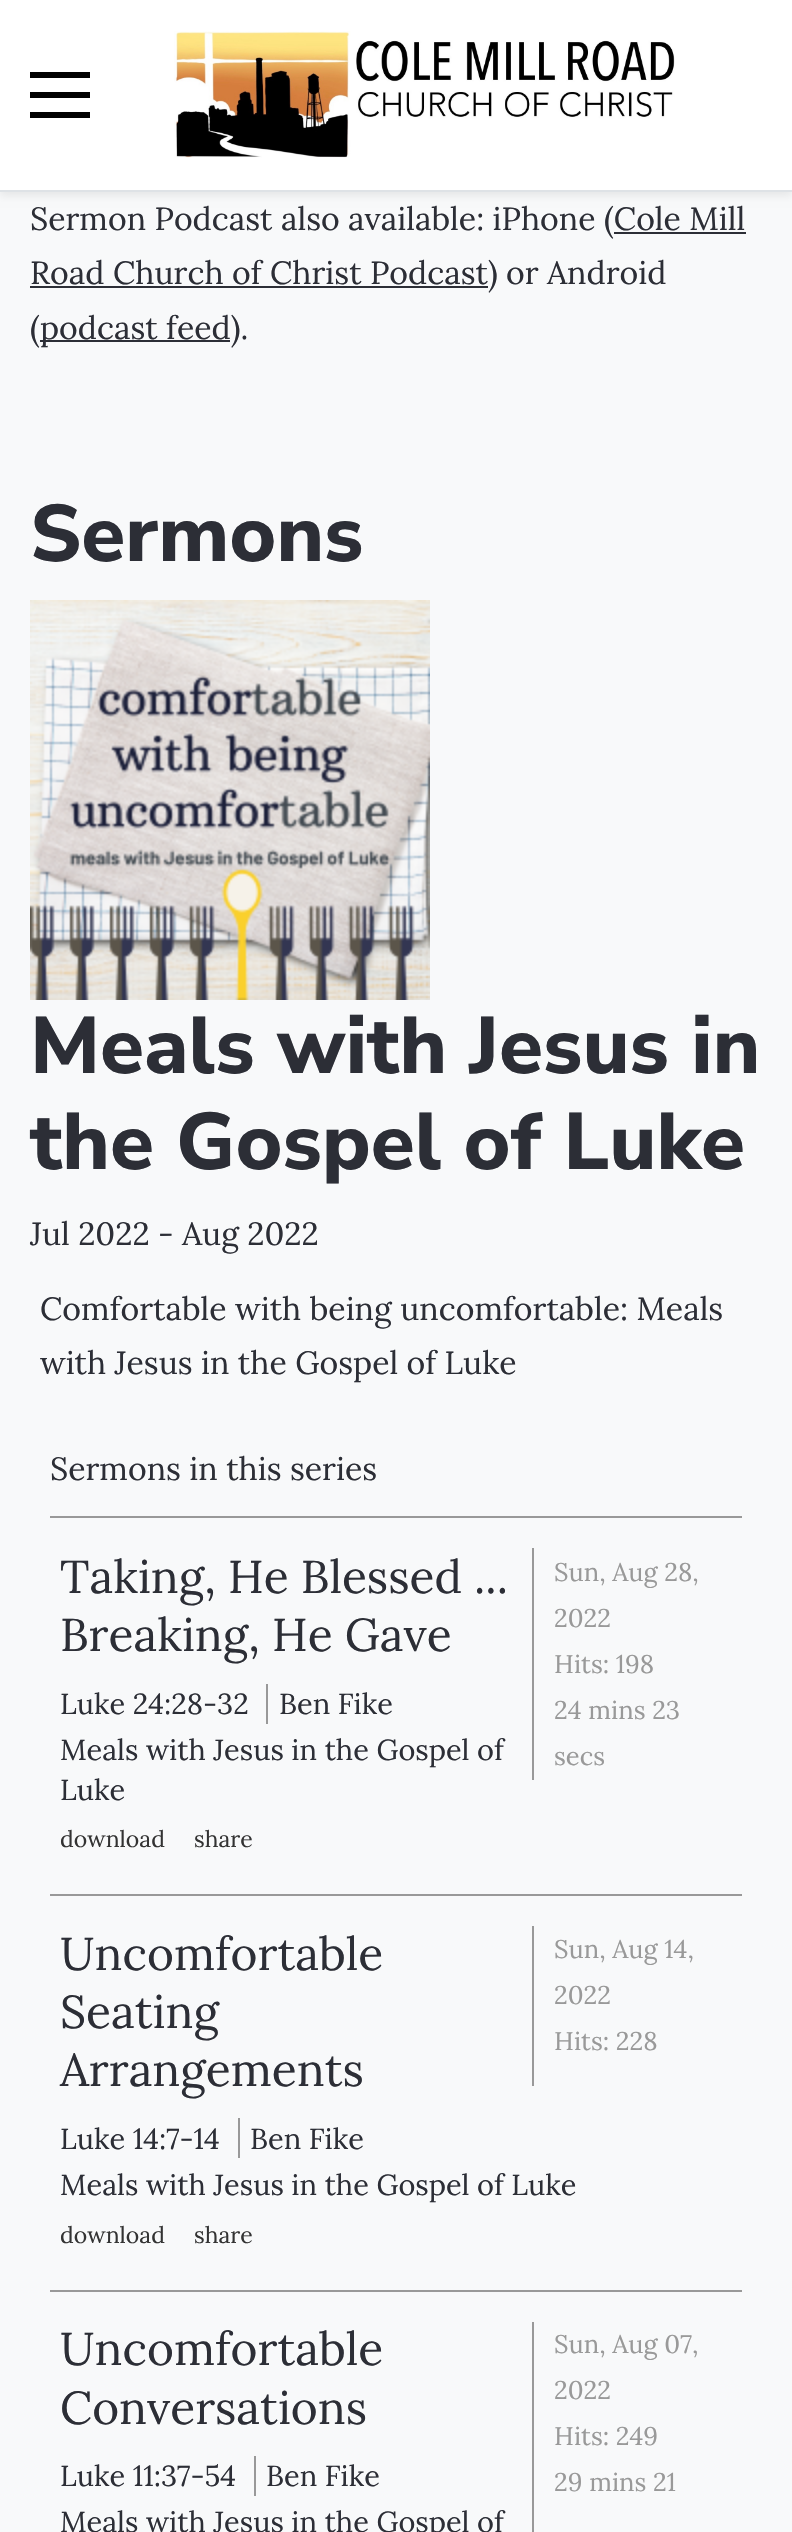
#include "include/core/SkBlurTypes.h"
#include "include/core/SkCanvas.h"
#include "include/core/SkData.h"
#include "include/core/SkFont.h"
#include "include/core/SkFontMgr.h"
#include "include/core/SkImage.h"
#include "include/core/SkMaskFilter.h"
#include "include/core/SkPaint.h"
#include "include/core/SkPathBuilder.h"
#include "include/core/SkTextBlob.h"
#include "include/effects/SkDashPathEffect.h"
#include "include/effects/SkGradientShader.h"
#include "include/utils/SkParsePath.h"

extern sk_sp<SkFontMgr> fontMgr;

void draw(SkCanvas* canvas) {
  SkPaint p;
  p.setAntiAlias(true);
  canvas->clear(SkColorSetRGB(248, 249, 250));
  p.setColor(SkColorSetARGB(18, 0, 0, 0));
  p.setMaskFilter(SkMaskFilter::MakeBlur(kNormal_SkBlurStyle, 4));
  canvas->drawRect(SkRect::MakeLTRB(0, 4, 792, 196), p);
  p.setMaskFilter(nullptr);
  p.setColor(SK_ColorWHITE);
  canvas->drawRect(SkRect::MakeLTRB(0, 0, 792, 190), p);
  p.setColor(SkColorSetRGB(222, 226, 230));
  canvas->drawRect(SkRect::MakeLTRB(0, 190, 792, 192), p);
  p.setColor(SK_ColorBLACK);
  canvas->drawRect(SkRect::MakeLTRB(30, 92, 90, 98), p);
  canvas->drawRect(SkRect::MakeLTRB(30, 72, 90, 78), p);
  canvas->drawRect(SkRect::MakeLTRB(30, 112, 90, 118), p);
  canvas->drawImageRect(SkImages::DeferredFromEncodedData(SkData::MakeFromFileName("images/1.png")), SkRect::MakeLTRB(174, 31, 675, 158), SkSamplingOptions());
  p.setColor(SkColorSetRGB(44, 46, 54));
  canvas->drawRect(SkRect::MakeLTRB(614, 232, 746, 234), p);
  canvas->drawRect(SkRect::MakeLTRB(30, 286, 488, 288), p);
  canvas->drawRect(SkRect::MakeLTRB(40, 340, 230, 342), p);
  canvas->drawImageRect(SkImages::DeferredFromEncodedData(SkData::MakeFromFileName("images/2.png")), SkRect::MakeLTRB(30, 600, 430, 1000), SkSamplingOptions());
  p.setColor(SkColorSetRGB(153, 153, 153));
  canvas->drawRect(SkRect::MakeLTRB(50, 1516, 742, 1518), p);
  canvas->drawRect(SkRect::MakeLTRB(50, 1894, 742, 1896), p);
  canvas->drawRect(SkRect::MakeLTRB(532, 1548, 534, 1780), p);
  canvas->drawRect(SkRect::MakeLTRB(266, 1684, 268, 1724), p);
  canvas->drawRect(SkRect::MakeLTRB(50, 2290, 742, 2292), p);
  canvas->drawRect(SkRect::MakeLTRB(532, 1926, 534, 2086), p);
  canvas->drawRect(SkRect::MakeLTRB(238, 2118, 240, 2158), p);
  canvas->drawRect(SkRect::MakeLTRB(532, 2322, 534, 2532), p);
  canvas->drawRect(SkRect::MakeLTRB(254, 2456, 256, 2496), p);
  SkFont font1(fontMgr->matchFamilyStyle("Lora", SkFontStyle::Normal()), 32);
  font1.setSubpixel(true);
  p.setColor(SkColorSetRGB(44, 46, 54));
  canvas->drawString("Sermon Podcast also available: iPhone (Cole Mill", 30, 230, font1, p);
  canvas->drawString("Road Church of Christ Podcast) or Android", 30, 284, font1, p);
  canvas->drawString("(", 30, 339, font1, p);
  canvas->drawString("podcast feed).", 40, 339, font1, p);
  SkFont font2(fontMgr->matchFamilyStyle("Nunito Sans", SkFontStyle(800, SkFontStyle::kNormal_Width, SkFontStyle::kUpright_Slant)), 80);
  font2.setSubpixel(true);
  canvas->drawString("Sermons", 30, 561, font2, p);
  canvas->drawString("Meals with Jesus in", 30, 1073, font2, p);
  canvas->drawString("the Gospel of Luke", 30, 1169, font2, p);
  canvas->drawString("Jul 2022 - Aug 2022", 30, 1245, font1, p);
  canvas->drawString("Comfortable with being uncomfortable: Meals", 40, 1320, font1, p);
  canvas->drawString("with Jesus in the Gospel of Luke", 40, 1374, font1, p);
  canvas->drawString("Sermons in this series", 50, 1480, font1, p);
  SkFont font3(fontMgr->matchFamilyStyle("Lora", SkFontStyle::Normal()), 46);
  font3.setSubpixel(true);
  canvas->drawString("Taking, He Blessed ...", 60, 1593, font3, p);
  canvas->drawString("Breaking, He Gave", 60, 1651, font3, p);
  SkFont font4(fontMgr->matchFamilyStyle("Lora", SkFontStyle::Normal()), 25.5f);
  font4.setSubpixel(true);
  p.setColor(SkColorSetRGB(153, 153, 153));
  canvas->drawString("Sun, Aug 28,", 554, 1581, font4, p);
  canvas->drawString("2022", 554, 1627, font4, p);
  canvas->drawString("Hits: 198", 554, 1673, font4, p);
  canvas->drawString("24 mins 23", 554, 1719, font4, p);
  canvas->drawString("secs", 554, 1765, font4, p);
  SkFont font5(fontMgr->matchFamilyStyle("Lora", SkFontStyle::Normal()), 28.9f);
  font5.setSubpixel(true);
  p.setColor(SkColorSetRGB(44, 46, 54));
  canvas->drawString("Luke 24:28-32", 60, 1714, font5, p);
  canvas->drawString("Ben Fike", 279, 1714, font5, p);
  canvas->drawString("Meals with Jesus in the Gospel of", 60, 1760, font5, p);
  canvas->drawString("Luke", 60, 1800, font5, p);
  SkFont font6(fontMgr->matchFamilyStyle("Lora", SkFontStyle::Normal()), 23);
  font6.setSubpixel(true);
  p.setColor(SkColorSetRGB(51, 51, 51));
  canvas->drawString("download", 60, 1847, font6, p);
  canvas->drawString("share", 194, 1847, font6, p);
  p.setColor(SkColorSetRGB(44, 46, 54));
  canvas->drawString("Uncomfortable", 60, 1970, font3, p);
  canvas->drawString("Seating", 60, 2028, font3, p);
  canvas->drawString("Arrangements", 60, 2086, font3, p);
  p.setColor(SkColorSetRGB(153, 153, 153));
  canvas->drawString("Sun, Aug 14,", 554, 1958, font4, p);
  canvas->drawString("2022", 554, 2004, font4, p);
  canvas->drawString("Hits: 228", 554, 2050, font4, p);
  p.setColor(SkColorSetRGB(44, 46, 54));
  canvas->drawString("Luke 14:7-14", 60, 2149, font5, p);
  canvas->drawString("Ben Fike", 250, 2149, font5, p);
  canvas->drawString("Meals with Jesus in the Gospel of Luke", 60, 2195, font5, p);
  p.setColor(SkColorSetRGB(51, 51, 51));
  canvas->drawString("download", 60, 2243, font6, p);
  canvas->drawString("share", 194, 2243, font6, p);
  p.setColor(SkColorSetRGB(44, 46, 54));
  canvas->drawString("Uncomfortable", 60, 2365, font3, p);
  canvas->drawString("Conversations", 60, 2424, font3, p);
  p.setColor(SkColorSetRGB(153, 153, 153));
  canvas->drawString("Sun, Aug 07,", 554, 2353, font4, p);
  canvas->drawString("2022", 554, 2399, font4, p);
  canvas->drawString("Hits: 249", 554, 2445, font4, p);
  canvas->drawString("29 mins 21", 554, 2491, font4, p);
  p.setColor(SkColorSetRGB(44, 46, 54));
  canvas->drawString("Luke 11:37-54", 60, 2486, font5, p);
  canvas->drawString("Ben Fike", 266, 2486, font5, p);
  canvas->drawString("Meals with Jesus in the Gospel of", 60, 2532, font5, p);
}
